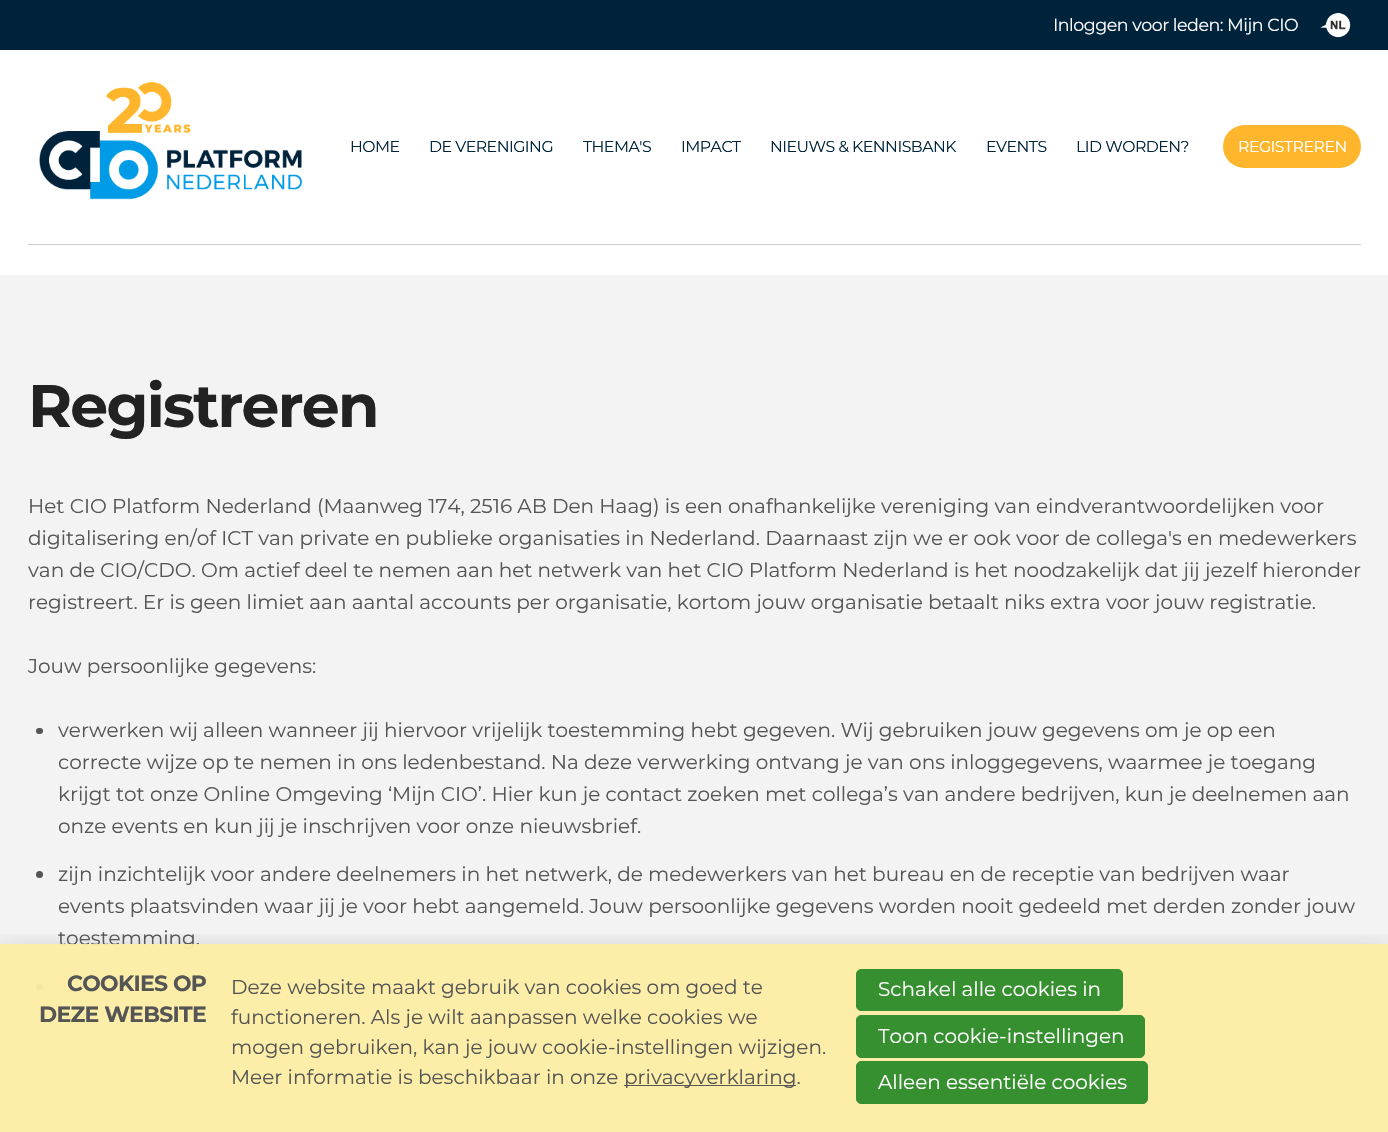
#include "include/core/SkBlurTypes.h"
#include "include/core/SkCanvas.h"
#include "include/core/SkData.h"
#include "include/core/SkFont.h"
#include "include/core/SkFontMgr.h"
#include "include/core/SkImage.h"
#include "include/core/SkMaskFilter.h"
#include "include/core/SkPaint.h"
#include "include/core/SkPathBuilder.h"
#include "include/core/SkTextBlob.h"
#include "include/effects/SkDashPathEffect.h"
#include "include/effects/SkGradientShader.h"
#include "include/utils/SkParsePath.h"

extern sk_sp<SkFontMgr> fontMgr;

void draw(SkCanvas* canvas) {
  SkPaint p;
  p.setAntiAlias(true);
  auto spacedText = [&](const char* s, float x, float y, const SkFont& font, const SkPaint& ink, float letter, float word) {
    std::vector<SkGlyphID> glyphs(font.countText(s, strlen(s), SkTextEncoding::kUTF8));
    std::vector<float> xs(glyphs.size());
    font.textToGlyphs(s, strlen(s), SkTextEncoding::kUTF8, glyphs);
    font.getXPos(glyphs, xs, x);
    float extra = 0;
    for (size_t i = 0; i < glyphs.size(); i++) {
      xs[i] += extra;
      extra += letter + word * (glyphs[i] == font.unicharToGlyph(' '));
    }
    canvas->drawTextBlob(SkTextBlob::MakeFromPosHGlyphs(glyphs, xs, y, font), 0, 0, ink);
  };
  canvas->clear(SkColorSetRGB(243, 243, 243));
  p.setColor(SkColorSetRGB(0, 35, 60));
  canvas->drawRect(SkRect::MakeLTRB(0, 0, 1388, 50), p);
  canvas->drawImageRect(SkImages::DeferredFromEncodedData(SkData::MakeFromFileName("images/1.png")), SkRect::MakeLTRB(1320, 13, 1351, 38), SkSamplingOptions());
  p.setColor(SK_ColorWHITE);
  canvas->drawRect(SkRect::MakeLTRB(0, 50, 1388, 275), p);
  canvas->drawImageRect(SkImages::DeferredFromEncodedData(SkData::MakeFromFileName("images/2.png")), SkRect::MakeLTRB(39, 82, 302, 200), SkSamplingOptions());
  p.setColor(SkColorSetRGB(255, 182, 44));
  canvas->drawRoundRect(SkRect::MakeLTRB(1223, 125, 1361, 168), 21.5f, 21.5f, p);
  p.setColor(SkColorSetRGB(204, 204, 204));
  canvas->drawRect(SkRect::MakeLTRB(28, 244, 1361, 245), p);
  p.setColor(SkColorSetRGB(85, 85, 85));
  canvas->drawRoundRect(SkRect::MakeLTRB(36, 728, 43, 734), 3, 3, p);
  canvas->drawCircle(39.5f, 874.5f, 3.5f, p);
  canvas->drawRoundRect(SkRect::MakeLTRB(36, 984, 43, 990), 3, 3, p);
  canvas->save();
  canvas->clipRect(SkRect::MakeLTRB(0, 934, 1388, 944));
  p.setColor(SkColorSetARGB(51, 0, 0, 0));
  p.setMaskFilter(SkMaskFilter::MakeBlur(kNormal_SkBlurStyle, 12.5f));
  canvas->drawRect(SkRect::MakeLTRB(0, 950, 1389, 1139), p);
  p.setMaskFilter(nullptr);
  canvas->restore();
  SkFont font1(fontMgr->matchFamilyStyle("Montserrat", SkFontStyle::Normal()), 17.5f);
  font1.setSubpixel(true);
  p.setColor(SK_ColorWHITE);
  spacedText("Inloggen voor leden: Mijn CIO", 1053, 31, font1, p, -0.5f, 0);
  SkFont font2(fontMgr->matchFamilyStyle("Montserrat", SkFontStyle::Normal()), 15.75f);
  font2.setSubpixel(true);
  p.setColor(SkColorSetRGB(1, 37, 59));
  spacedText("HOME", 350, 152, font2, p, -0.5f, 0);
  spacedText("DE VERENIGING", 429, 152, font2, p, -0.5f, 0);
  spacedText("THEMA'S", 583, 152, font2, p, -0.5f, 0);
  spacedText("IMPACT", 681, 152, font2, p, -0.5f, 0);
  spacedText("NIEUWS & KENNISBANK", 770, 152, font2, p, -0.5f, 0);
  spacedText("EVENTS", 986, 152, font2, p, -0.5f, 0);
  spacedText("LID WORDEN?", 1076, 152, font2, p, -0.5f, 0);
  p.setColor(SK_ColorWHITE);
  spacedText("REGISTREREN", 1238, 152, font2, p, -0.5f, 0);
  SkFont font3(fontMgr->matchFamilyStyle("Montserrat", SkFontStyle::Bold()), 60);
  font3.setSubpixel(true);
  p.setColor(SkColorSetRGB(34, 34, 34));
  spacedText("Registreren", 28, 427, font3, p, -1.75f, 0);
  SkFont font4(fontMgr->matchFamilyStyle("Montserrat", SkFontStyle::Normal()), 20);
  font4.setSubpixel(true);
  p.setColor(SkColorSetRGB(85, 85, 85));
  canvas->drawString("Het CIO Platform Nederland (Maanweg 174, 2516 AB Den Haag) is een onafhankelijke vereniging van eindverantwoordelijken voor", 28, 513, font4, p);
  canvas->drawString("digitalisering en/of ICT van private en publieke organisaties in Nederland. Daarnaast zijn we er ook voor de collega's en medewerkers", 28, 545, font4, p);
  canvas->drawString("van de CIO/CDO. Om actief deel te nemen aan het netwerk van het CIO Platform Nederland is het noodzakelijk dat jij jezelf hieronder", 28, 577, font4, p);
  canvas->drawString("registreert. Er is geen limiet aan aantal accounts per organisatie, kortom jouw organisatie betaalt niks extra voor jouw registratie.", 28, 609, font4, p);
  canvas->drawString("Jouw persoonlijke gegevens:", 28, 673, font4, p);
  canvas->drawString("verwerken wij alleen wanneer jij hiervoor vrijelijk toestemming hebt gegeven. Wij gebruiken jouw gegevens om je op een", 58, 737, font4, p);
  canvas->drawString("correcte wijze op te nemen in ons ledenbestand. Na deze verwerking ontvang je van ons inloggegevens, waarmee je toegang", 58, 769, font4, p);
  canvas->drawString("krijgt tot onze Online Omgeving ‘Mijn CIO’. Hier kun je contact zoeken met collega’s van andere bedrijven, kun je deelnemen aan", 58, 801, font4, p);
  canvas->drawString("onze events en kun jij je inschrijven voor onze nieuwsbrief.", 58, 833, font4, p);
  canvas->drawString("zijn inzichtelijk voor andere deelnemers in het netwerk, de medewerkers van het bureau en de receptie van bedrijven waar", 58, 881, font4, p);
  canvas->drawString("events plaatsvinden waar jij je voor hebt aangemeld. Jouw persoonlijke gegevens worden nooit gedeeld met derden zonder jouw", 58, 913, font4, p);
  canvas->drawString("toestemming.", 58, 945, font4, p);
  p.setColor(SkColorSetARGB(242, 252, 237, 163));
  canvas->drawRect(SkRect::MakeLTRB(0, 944, 1388, 1132), p);
  SkFont font5(fontMgr->matchFamilyStyle("Montserrat", SkFontStyle::Bold()), 22);
  font5.setSubpixel(true);
  p.setColor(SkColorSetRGB(85, 85, 85));
  spacedText("COOKIES OP", 67, 991, font5, p, -0.7f, 0);
  spacedText("DEZE WEBSITE", 39, 1022, font5, p, -0.7f, 0);
  canvas->drawString("Deze website maakt gebruik van cookies om goed te", 231, 994, font4, p);
  canvas->drawString("functioneren. Als je wilt aanpassen welke cookies we", 231, 1024, font4, p);
  canvas->drawString("mogen gebruiken, kan je jouw cookie-instellingen wijzigen.", 231, 1054, font4, p);
  canvas->drawString("Meer informatie is beschikbaar in onze", 231, 1084, font4, p);
  canvas->drawRect(SkRect::MakeLTRB(624, 1085, 796, 1086), p);
  canvas->drawString("privacyverklaring.", 624, 1084, font4, p);
  p.setColor(SkColorSetRGB(55, 144, 47));
  canvas->drawRoundRect(SkRect::MakeLTRB(856.5f, 969.5f, 1122.5f, 1010.5f), 4.5f, 4.5f, p);
  p.setStyle(SkPaint::kStroke_Style);
  p.setStrokeWidth(1);
  canvas->drawRoundRect(SkRect::MakeLTRB(856.5f, 969.5f, 1122.5f, 1010.5f), 4.5f, 4.5f, p);
  p.setStyle(SkPaint::kFill_Style);
  p.setColor(SK_ColorWHITE);
  canvas->drawString("Schakel alle cookies in", 878, 996, font4, p);
  p.setColor(SkColorSetRGB(55, 144, 47));
  canvas->drawRoundRect(SkRect::MakeLTRB(856.5f, 1015.5f, 1144.5f, 1057.5f), 4.5f, 4.5f, p);
  p.setStyle(SkPaint::kStroke_Style);
  canvas->drawRoundRect(SkRect::MakeLTRB(856.5f, 1015.5f, 1144.5f, 1057.5f), 4.5f, 4.5f, p);
  p.setStyle(SkPaint::kFill_Style);
  p.setColor(SK_ColorWHITE);
  canvas->drawString("Toon cookie-instellingen", 878, 1043, font4, p);
  p.setColor(SkColorSetRGB(55, 144, 47));
  canvas->drawRoundRect(SkRect::MakeLTRB(856.5f, 1061.5f, 1147.5f, 1103.5f), 4.5f, 4.5f, p);
  p.setStyle(SkPaint::kStroke_Style);
  canvas->drawRoundRect(SkRect::MakeLTRB(856.5f, 1061.5f, 1147.5f, 1103.5f), 4.5f, 4.5f, p);
  p.setStyle(SkPaint::kFill_Style);
  p.setColor(SK_ColorWHITE);
  canvas->drawString("Alleen essentiële cookies", 878, 1089, font4, p);
}
